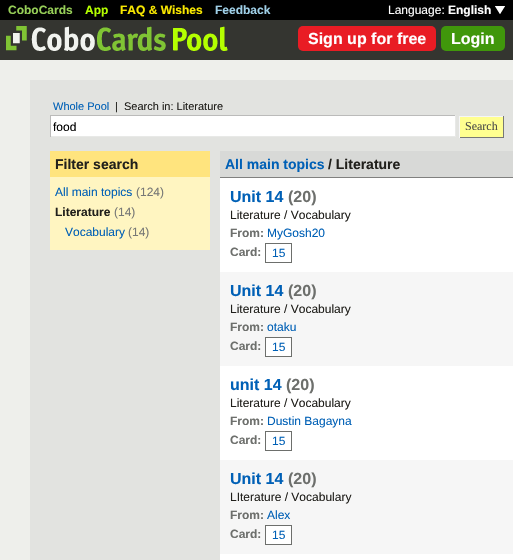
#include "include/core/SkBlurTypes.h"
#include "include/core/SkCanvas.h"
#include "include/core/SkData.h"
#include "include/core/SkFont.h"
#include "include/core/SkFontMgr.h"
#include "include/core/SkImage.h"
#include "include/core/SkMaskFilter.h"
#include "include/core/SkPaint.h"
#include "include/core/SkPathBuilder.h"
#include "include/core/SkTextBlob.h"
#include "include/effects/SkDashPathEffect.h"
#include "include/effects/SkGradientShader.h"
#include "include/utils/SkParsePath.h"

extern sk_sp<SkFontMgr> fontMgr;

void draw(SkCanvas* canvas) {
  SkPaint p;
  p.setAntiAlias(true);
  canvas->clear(SkColorSetRGB(238, 239, 235));
  p.setColor(SkColorSetRGB(52, 53, 48));
  canvas->drawRect(SkRect::MakeLTRB(0, 20, 513, 60), p);
  p.setColor(SK_ColorBLACK);
  canvas->drawRect(SkRect::MakeLTRB(0, 0, 513, 20), p);
  canvas->drawImageRect(SkImages::DeferredFromEncodedData(SkData::MakeFromFileName("images/1.png")), SkRect::MakeLTRB(495, 6, 505, 14), SkSamplingOptions());
  canvas->drawImageRect(SkImages::DeferredFromEncodedData(SkData::MakeFromFileName("images/2.png")), SkRect::MakeLTRB(6, 26, 228, 51), SkSamplingOptions());
  p.setColor(SkColorSetRGB(233, 28, 36));
  canvas->drawRoundRect(SkRect::MakeLTRB(298, 26, 436, 51), 5, 5, p);
  p.setColor(SkColorSetRGB(64, 151, 11));
  canvas->drawRoundRect(SkRect::MakeLTRB(441, 26, 505, 51), 5, 5, p);
  p.setColor(SkColorSetRGB(226, 227, 224));
  canvas->drawRect(SkRect::MakeLTRB(30, 80, 513, 560), p);
  p.setColor(SK_ColorWHITE);
  canvas->drawRect(SkRect::MakeLTRB(51, 116, 455, 136), p);
  p.setColor(SkColorSetRGB(187, 187, 186));
  canvas->drawRect(SkRect::MakeLTRB(50, 115, 456, 116), p);
  p.setColor(SkColorSetRGB(232, 233, 231));
  canvas->drawRect(SkRect::MakeLTRB(455, 115, 456, 137), p);
  canvas->drawRect(SkRect::MakeLTRB(50, 136, 456, 137), p);
  p.setColor(SkColorSetRGB(187, 187, 186));
  canvas->drawRect(SkRect::MakeLTRB(50, 115, 51, 137), p);
  p.setColor(SkColorSetRGB(255, 255, 144));
  canvas->drawRect(SkRect::MakeLTRB(460, 117, 503, 137), p);
  p.setColor(SkColorSetRGB(246, 246, 246));
  canvas->drawRect(SkRect::MakeLTRB(459, 116, 504, 117), p);
  p.setColor(SkColorSetRGB(119, 120, 118));
  canvas->drawRect(SkRect::MakeLTRB(503, 116, 504, 138), p);
  canvas->drawRect(SkRect::MakeLTRB(459, 137, 504, 138), p);
  p.setColor(SkColorSetRGB(246, 246, 246));
  canvas->drawRect(SkRect::MakeLTRB(459, 116, 460, 138), p);
  p.setColor(SkColorSetRGB(255, 228, 126));
  canvas->drawRect(SkRect::MakeLTRB(50, 151, 210, 177), p);
  p.setColor(SkColorSetRGB(255, 245, 193));
  canvas->drawRect(SkRect::MakeLTRB(50, 177, 210, 250), p);
  p.setColor(SkColorSetRGB(216, 217, 215));
  canvas->drawRect(SkRect::MakeLTRB(220, 151, 513, 177), p);
  p.setColor(SkColorSetRGB(128, 128, 127));
  canvas->drawRect(SkRect::MakeLTRB(220, 177, 513, 178), p);
  p.setColor(SK_ColorWHITE);
  canvas->drawRect(SkRect::MakeLTRB(220, 178, 513, 272), p);
  p.setStyle(SkPaint::kStroke_Style);
  p.setStrokeWidth(1);
  p.setColor(SkColorSetRGB(109, 111, 108));
  canvas->drawRect(SkRect::MakeLTRB(265.5f, 243.5f, 291.5f, 262.5f), p);
  p.setStyle(SkPaint::kFill_Style);
  p.setColor(SkColorSetRGB(246, 246, 246));
  canvas->drawRect(SkRect::MakeLTRB(220, 272, 513, 366), p);
  p.setColor(SK_ColorWHITE);
  canvas->drawRect(SkRect::MakeLTRB(265.5f, 337.5f, 291.5f, 356.5f), p);
  p.setStyle(SkPaint::kStroke_Style);
  p.setColor(SkColorSetRGB(109, 111, 108));
  canvas->drawRect(SkRect::MakeLTRB(265.5f, 337.5f, 291.5f, 356.5f), p);
  p.setStyle(SkPaint::kFill_Style);
  p.setColor(SK_ColorWHITE);
  canvas->drawRect(SkRect::MakeLTRB(220, 366, 513, 460), p);
  p.setStyle(SkPaint::kStroke_Style);
  p.setColor(SkColorSetRGB(109, 111, 108));
  canvas->drawRect(SkRect::MakeLTRB(265.5f, 431.5f, 291.5f, 450.5f), p);
  p.setStyle(SkPaint::kFill_Style);
  p.setColor(SkColorSetRGB(246, 246, 246));
  canvas->drawRect(SkRect::MakeLTRB(220, 460, 513, 554), p);
  p.setColor(SK_ColorWHITE);
  canvas->drawRect(SkRect::MakeLTRB(265.5f, 525.5f, 291.5f, 544.5f), p);
  p.setStyle(SkPaint::kStroke_Style);
  p.setColor(SkColorSetRGB(109, 111, 108));
  canvas->drawRect(SkRect::MakeLTRB(265.5f, 525.5f, 291.5f, 544.5f), p);
  p.setStyle(SkPaint::kFill_Style);
  p.setColor(SK_ColorWHITE);
  canvas->drawRect(SkRect::MakeLTRB(220, 554, 513, 560), p);
  SkFont font1(fontMgr->matchFamilyStyle("Liberation Sans", SkFontStyle::Bold()), 12);
  font1.setSubpixel(true);
  p.setColor(SkColorSetRGB(151, 207, 88));
  canvas->drawString("CoboCards", 8, 14, font1, p);
  p.setColor(SkColorSetRGB(180, 255, 0));
  canvas->drawString("App", 85, 14, font1, p);
  p.setColor(SkColorSetRGB(249, 232, 0));
  canvas->drawString("FAQ & Wishes", 120, 14, font1, p);
  p.setColor(SkColorSetRGB(159, 207, 231));
  canvas->drawString("Feedback", 215, 14, font1, p);
  SkFont font2(fontMgr->matchFamilyStyle("Liberation Sans", SkFontStyle::Normal()), 12);
  font2.setSubpixel(true);
  p.setColor(SK_ColorWHITE);
  canvas->drawString("Language:", 388, 14, font2, p);
  canvas->drawString("English", 448, 14, font1, p);
  SkFont font3(fontMgr->matchFamilyStyle("Liberation Sans", SkFontStyle::Bold()), 16);
  font3.setSubpixel(true);
  canvas->drawString("Sign up for free", 308, 44, font3, p);
  canvas->drawString("Login", 451, 44, font3, p);
  SkFont font4(fontMgr->matchFamilyStyle("Liberation Sans", SkFontStyle::Normal()), 11);
  font4.setSubpixel(true);
  p.setColor(SkColorSetRGB(0, 96, 182));
  canvas->drawString("Whole Pool", 53, 110, font4, p);
  p.setColor(SkColorSetRGB(33, 32, 28));
  canvas->drawString("|  Search in: Literature", 115, 110, font4, p);
  p.setColor(SK_ColorBLACK);
  canvas->drawString("food", 53, 131, font2, p);
  SkFont font5(fontMgr->matchFamilyStyle("Liberation Serif", SkFontStyle::Normal()), 12);
  font5.setSubpixel(true);
  p.setColor(SkColorSetRGB(75, 76, 73));
  canvas->drawString("Search", 465, 130, font5, p);
  SkFont font6(fontMgr->matchFamilyStyle("Liberation Sans", SkFontStyle::Bold()), 14);
  font6.setSubpixel(true);
  p.setColor(SkColorSetRGB(33, 32, 28));
  canvas->drawString("Filter search", 55, 169, font6, p);
  p.setColor(SkColorSetRGB(0, 96, 182));
  canvas->drawString("All main topics", 55, 196, font2, p);
  p.setColor(SkColorSetRGB(119, 120, 118));
  canvas->drawString("(124)", 136, 196, font2, p);
  p.setColor(SkColorSetRGB(33, 32, 28));
  canvas->drawString("Literature", 55, 216, font1, p);
  p.setColor(SkColorSetRGB(119, 120, 118));
  canvas->drawString("(14)", 114, 216, font2, p);
  p.setColor(SkColorSetRGB(0, 96, 182));
  canvas->drawString("Vocabulary", 65, 236, font2, p);
  p.setColor(SkColorSetRGB(119, 120, 118));
  canvas->drawString("(14)", 128, 236, font2, p);
  p.setColor(SkColorSetRGB(0, 96, 182));
  canvas->drawString("All main topics", 225, 169, font6, p);
  p.setColor(SkColorSetRGB(33, 32, 28));
  canvas->drawString("/ Literature", 328, 169, font6, p);
  p.setColor(SkColorSetRGB(0, 96, 182));
  canvas->drawString("Unit 14", 230, 202, font3, p);
  p.setColor(SkColorSetRGB(109, 111, 108));
  canvas->drawString("(20)", 288, 202, font3, p);
  p.setColor(SkColorSetRGB(33, 32, 28));
  canvas->drawString("Literature / Vocabulary", 230, 219, font2, p);
  p.setColor(SkColorSetRGB(109, 111, 108));
  canvas->drawString("From:", 230, 237, font1, p);
  p.setColor(SkColorSetRGB(0, 96, 182));
  canvas->drawString("MyGosh20", 267, 237, font2, p);
  p.setColor(SkColorSetRGB(109, 111, 108));
  canvas->drawString("Card:", 230, 256, font1, p);
  p.setColor(SkColorSetRGB(0, 96, 182));
  canvas->drawString("15", 272, 257, font2, p);
  canvas->drawString("Unit 14", 230, 296, font3, p);
  p.setColor(SkColorSetRGB(109, 111, 108));
  canvas->drawString("(20)", 288, 296, font3, p);
  p.setColor(SkColorSetRGB(33, 32, 28));
  canvas->drawString("Literature / Vocabulary", 230, 313, font2, p);
  p.setColor(SkColorSetRGB(109, 111, 108));
  canvas->drawString("From:", 230, 331, font1, p);
  p.setColor(SkColorSetRGB(0, 96, 182));
  canvas->drawString("otaku", 267, 331, font2, p);
  p.setColor(SkColorSetRGB(109, 111, 108));
  canvas->drawString("Card:", 230, 350, font1, p);
  p.setColor(SkColorSetRGB(0, 96, 182));
  canvas->drawString("15", 272, 351, font2, p);
  canvas->drawString("unit 14", 230, 390, font3, p);
  p.setColor(SkColorSetRGB(109, 111, 108));
  canvas->drawString("(20)", 286, 390, font3, p);
  p.setColor(SkColorSetRGB(33, 32, 28));
  canvas->drawString("Literature / Vocabulary", 230, 407, font2, p);
  p.setColor(SkColorSetRGB(109, 111, 108));
  canvas->drawString("From:", 230, 425, font1, p);
  p.setColor(SkColorSetRGB(0, 96, 182));
  canvas->drawString("Dustin Bagayna", 267, 425, font2, p);
  p.setColor(SkColorSetRGB(109, 111, 108));
  canvas->drawString("Card:", 230, 444, font1, p);
  p.setColor(SkColorSetRGB(0, 96, 182));
  canvas->drawString("15", 272, 445, font2, p);
  canvas->drawString("Unit 14", 230, 484, font3, p);
  p.setColor(SkColorSetRGB(109, 111, 108));
  canvas->drawString("(20)", 288, 484, font3, p);
  p.setColor(SkColorSetRGB(33, 32, 28));
  canvas->drawString("LIterature / Vocabulary", 230, 501, font2, p);
  p.setColor(SkColorSetRGB(109, 111, 108));
  canvas->drawString("From:", 230, 519, font1, p);
  p.setColor(SkColorSetRGB(0, 96, 182));
  canvas->drawString("Alex", 267, 519, font2, p);
  p.setColor(SkColorSetRGB(109, 111, 108));
  canvas->drawString("Card:", 230, 538, font1, p);
  p.setColor(SkColorSetRGB(0, 96, 182));
  canvas->drawString("15", 272, 539, font2, p);
}
